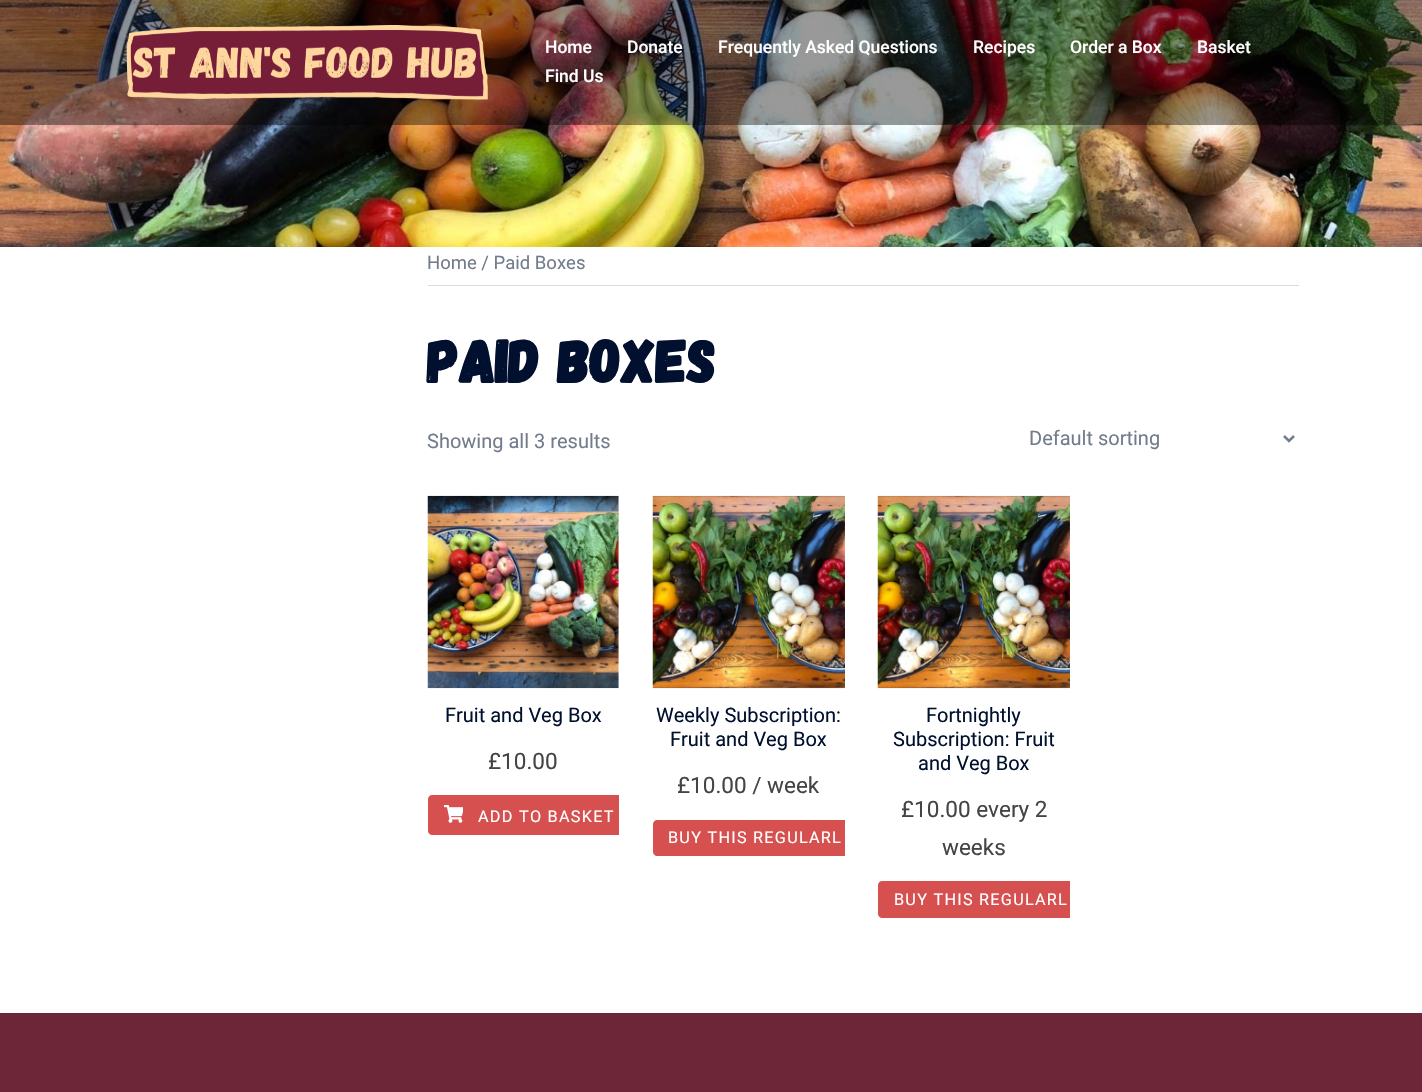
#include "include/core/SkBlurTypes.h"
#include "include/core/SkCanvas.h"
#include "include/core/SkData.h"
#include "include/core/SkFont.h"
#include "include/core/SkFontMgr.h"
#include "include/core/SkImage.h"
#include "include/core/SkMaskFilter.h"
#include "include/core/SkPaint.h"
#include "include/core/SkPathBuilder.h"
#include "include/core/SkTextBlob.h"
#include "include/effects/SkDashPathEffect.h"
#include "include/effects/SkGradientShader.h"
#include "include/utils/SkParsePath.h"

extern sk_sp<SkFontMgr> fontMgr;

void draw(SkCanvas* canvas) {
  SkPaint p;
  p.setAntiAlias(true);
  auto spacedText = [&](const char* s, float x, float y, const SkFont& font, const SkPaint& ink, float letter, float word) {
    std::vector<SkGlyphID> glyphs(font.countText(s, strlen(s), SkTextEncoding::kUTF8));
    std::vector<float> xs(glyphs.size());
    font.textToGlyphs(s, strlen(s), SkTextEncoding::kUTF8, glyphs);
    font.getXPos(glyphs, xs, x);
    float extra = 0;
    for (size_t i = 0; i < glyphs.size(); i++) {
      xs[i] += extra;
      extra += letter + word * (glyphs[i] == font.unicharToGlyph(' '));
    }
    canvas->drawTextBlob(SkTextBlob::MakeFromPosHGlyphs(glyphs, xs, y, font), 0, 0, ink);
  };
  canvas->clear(SK_ColorWHITE);
  canvas->drawImageRect(SkImages::DeferredFromEncodedData(SkData::MakeFromFileName("images/1.png")), SkRect::MakeLTRB(0, 0, 1422, 247), SkSamplingOptions());
  p.setColor(SkColorSetARGB(102, 0, 0, 0));
  canvas->drawRect(SkRect::MakeLTRB(0, 0, 1422, 125), p);
  canvas->drawImageRect(SkImages::DeferredFromEncodedData(SkData::MakeFromFileName("images/2.png")), SkRect::MakeLTRB(126, 25, 488, 100), SkSamplingOptions());
  p.setColor(SkColorSetRGB(219, 219, 219));
  canvas->drawRect(SkRect::MakeLTRB(428, 285, 1299, 286), p);
  p.setStyle(SkPaint::kStroke_Style);
  p.setStrokeWidth(2.5f);
  p.setColor(SkColorSetRGB(115, 124, 140));
  canvas->drawPath(SkPathBuilder().moveTo(1284, 436).lineTo(1289, 441).lineTo(1294, 436).detach(), p);
  canvas->drawImageRect(SkImages::DeferredFromEncodedData(SkData::MakeFromFileName("images/3.png")), SkRect::MakeLTRB(427, 495, 619, 689), SkSamplingOptions());
  p.setStyle(SkPaint::kFill_Style);
  p.setColor(SkColorSetRGB(214, 80, 80));
  canvas->drawPath(SkPathBuilder().moveTo(432, 795).lineTo(619, 795).lineTo(619, 835).lineTo(432, 835).cubicTo(430, 835, 428, 833, 428, 831).lineTo(428, 799).cubicTo(428, 797, 430, 795, 432, 795).close().detach(), p);
  canvas->drawImageRect(SkImages::DeferredFromEncodedData(SkData::MakeFromFileName("images/4.png")), SkRect::MakeLTRB(444, 805, 463, 823), SkSamplingOptions());
  canvas->drawImageRect(SkImages::DeferredFromEncodedData(SkData::MakeFromFileName("images/5.png")), SkRect::MakeLTRB(652, 495, 845, 689), SkSamplingOptions());
  canvas->drawPath(SkPathBuilder().moveTo(657, 820).lineTo(845, 820).lineTo(845, 856).lineTo(657, 856).cubicTo(655, 856, 653, 854, 653, 852).lineTo(653, 824).cubicTo(653, 822, 655, 820, 657, 820).close().detach(), p);
  canvas->drawImageRect(SkImages::DeferredFromEncodedData(SkData::MakeFromFileName("images/5.png")), SkRect::MakeLTRB(877, 495, 1070, 689), SkSamplingOptions());
  canvas->drawPath(SkPathBuilder().moveTo(882, 881).lineTo(1070, 881).lineTo(1070, 918).lineTo(882, 918).cubicTo(880, 918, 878, 916, 878, 914).lineTo(878, 885).cubicTo(878, 883, 880, 881, 882, 881).close().detach(), p);
  p.setColor(SkColorSetRGB(109, 37, 56));
  canvas->drawRect(SkRect::MakeLTRB(0, 1013, 1422, 1092), p);
  SkFont font1(fontMgr->matchFamilyStyle("Roboto", SkFontStyle(500, SkFontStyle::kNormal_Width, SkFontStyle::kUpright_Slant)), 17.5f);
  font1.setSubpixel(true);
  p.setColor(SK_ColorWHITE);
  canvas->drawString("Home", 545, 53, font1, p);
  canvas->drawString("Donate", 627, 53, font1, p);
  canvas->drawString("Frequently Asked Questions", 718, 53, font1, p);
  canvas->drawString("Recipes", 973, 53, font1, p);
  canvas->drawString("Order a Box", 1070, 53, font1, p);
  canvas->drawString("Basket", 1197, 53, font1, p);
  canvas->drawString("Find Us", 545, 82, font1, p);
  SkFont font2(fontMgr->matchFamilyStyle("Roboto", SkFontStyle::Normal()), 18.5f);
  font2.setSubpixel(true);
  p.setColor(SkColorSetRGB(115, 124, 140));
  canvas->drawString("Home / Paid Boxes", 427, 269, font2, p);
  SkFont font3(fontMgr->matchFamilyStyle("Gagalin", SkFontStyle::Bold()), 60);
  font3.setSubpixel(true);
  p.setColor(SkColorSetRGB(0, 16, 46));
  canvas->drawString("Paid Boxes", 427, 383, font3, p);
  SkFont font4(fontMgr->matchFamilyStyle("Roboto", SkFontStyle::Normal()), 20);
  font4.setSubpixel(true);
  p.setColor(SkColorSetRGB(115, 124, 140));
  canvas->drawString("Showing all 3 results", 427, 448, font4, p);
  canvas->drawString("Default sorting", 1029, 445, font4, p);
  p.setColor(SkColorSetRGB(0, 16, 46));
  canvas->drawString("Fruit and Veg Box", 445, 722, font4, p);
  SkFont font5(fontMgr->matchFamilyStyle("Roboto", SkFontStyle::Normal()), 22.5f);
  font5.setSubpixel(true);
  p.setColor(SkColorSetRGB(68, 68, 68));
  canvas->drawString("£10.00", 488, 769, font5, p);
  SkFont font6(fontMgr->matchFamilyStyle("Roboto", SkFontStyle::Normal()), 16.25f);
  font6.setSubpixel(true);
  p.setColor(SK_ColorWHITE);
  spacedText("ADD TO BASKET", 478, 822, font6, p, 1.25f, 0);
  p.setColor(SkColorSetRGB(0, 16, 46));
  canvas->drawString("Weekly Subscription:", 656, 722, font4, p);
  canvas->drawString("Fruit and Veg Box", 670, 746, font4, p);
  p.setColor(SkColorSetRGB(68, 68, 68));
  canvas->drawString("£10.00 / week", 677, 793, font5, p);
  p.setColor(SK_ColorWHITE);
  spacedText("BUY THIS REGULARL", 668, 843, font6, p, 1.25f, 0);
  p.setColor(SkColorSetRGB(0, 16, 46));
  canvas->drawString("Fortnightly", 926, 722, font4, p);
  canvas->drawString("Subscription: Fruit", 893, 746, font4, p);
  canvas->drawString("and Veg Box", 918, 770, font4, p);
  p.setColor(SkColorSetRGB(68, 68, 68));
  canvas->drawString("£10.00 every 2", 901, 817, font5, p);
  canvas->drawString("weeks", 942, 855, font5, p);
  p.setColor(SK_ColorWHITE);
  spacedText("BUY THIS REGULARL", 894, 905, font6, p, 1.25f, 0);
}
